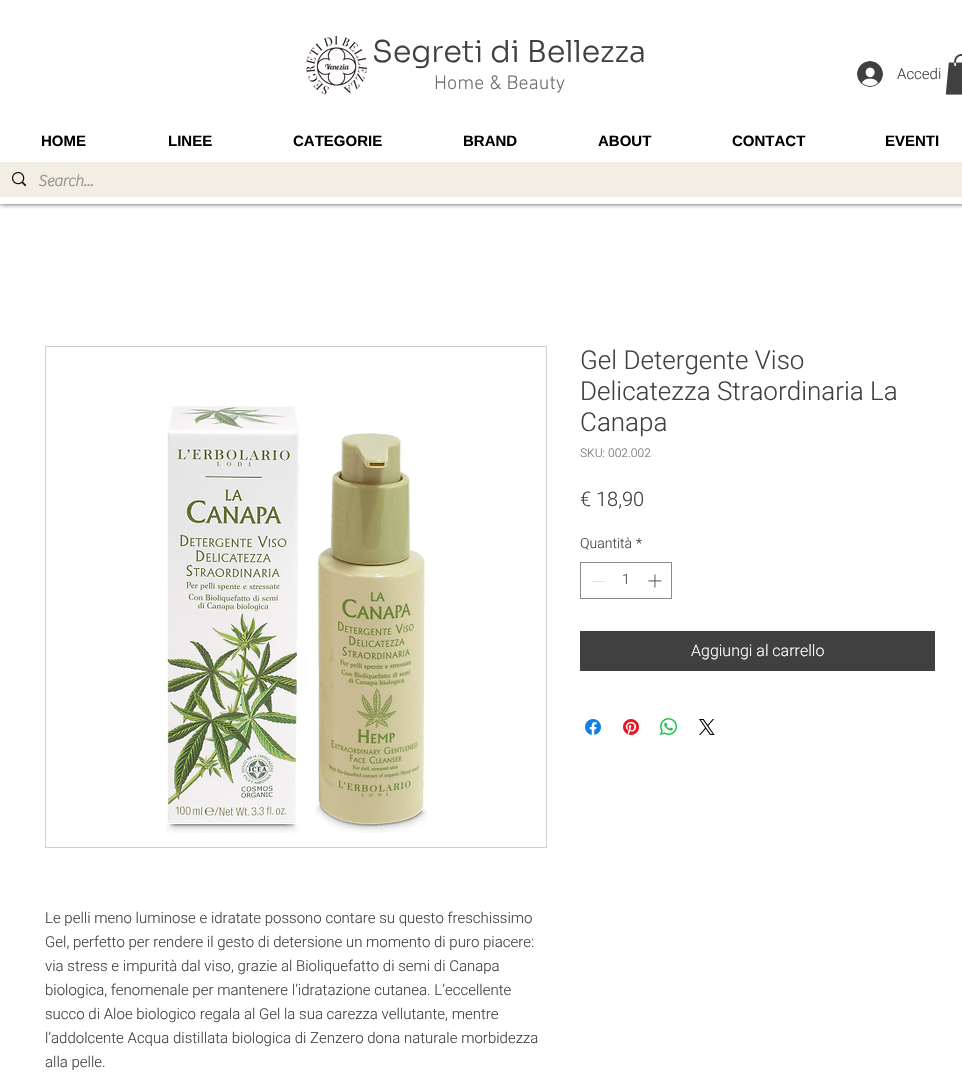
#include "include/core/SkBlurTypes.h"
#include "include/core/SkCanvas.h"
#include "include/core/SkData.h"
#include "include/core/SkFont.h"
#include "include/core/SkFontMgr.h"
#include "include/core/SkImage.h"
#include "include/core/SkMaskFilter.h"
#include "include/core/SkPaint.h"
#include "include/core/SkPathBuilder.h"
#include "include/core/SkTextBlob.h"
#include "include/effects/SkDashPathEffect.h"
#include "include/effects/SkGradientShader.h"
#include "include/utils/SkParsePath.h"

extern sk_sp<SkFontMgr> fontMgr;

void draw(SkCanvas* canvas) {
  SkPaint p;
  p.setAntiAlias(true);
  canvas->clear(SK_ColorWHITE);
  canvas->save();
  canvas->clipRect(SkRect::MakeLTRB(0, 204, 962, 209));
  p.setColor(SkColorSetARGB(179, 0, 0, 0));
  p.setMaskFilter(SkMaskFilter::MakeBlur(kNormal_SkBlurStyle, 2.5f));
  canvas->drawRect(SkRect::MakeLTRB(0, 0, 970, 204), p);
  p.setMaskFilter(nullptr);
  canvas->restore();
  canvas->drawImageRect(SkImages::DeferredFromEncodedData(SkData::MakeFromFileName("images/1.png")), SkRect::MakeLTRB(306, 36, 368, 95), SkSamplingOptions());
  canvas->drawImageRect(SkImages::DeferredFromEncodedData(SkData::MakeFromFileName("images/2.png")), SkRect::MakeLTRB(857, 61, 883, 87), SkSamplingOptions());
  canvas->drawImageRect(SkImages::DeferredFromEncodedData(SkData::MakeFromFileName("images/3.png")), SkRect::MakeLTRB(945, 54, 962, 95), SkSamplingOptions());
  p.setColor(SkColorSetRGB(242, 238, 228));
  canvas->drawRect(SkRect::MakeLTRB(0, 162, 962, 197), p);
  canvas->drawImageRect(SkImages::DeferredFromEncodedData(SkData::MakeFromFileName("images/4.png")), SkRect::MakeLTRB(12, 172, 26, 186), SkSamplingOptions());
  p.setStyle(SkPaint::kStroke_Style);
  p.setStrokeWidth(1);
  p.setColor(SkColorSetRGB(140, 140, 141));
  canvas->drawRect(SkRect::MakeLTRB(580.5f, 562.5f, 671.5f, 598.5f), p);
  p.setStyle(SkPaint::kFill_Style);
  p.setColor(SkColorSetRGB(227, 227, 227));
  canvas->drawRect(SkRect::MakeLTRB(592, 581, 605, 582), p);
  canvas->drawImageRect(SkImages::DeferredFromEncodedData(SkData::MakeFromFileName("images/5.png")), SkRect::MakeLTRB(648, 574, 662, 588), SkSamplingOptions());
  p.setColor(SkColorSetRGB(64, 64, 65));
  canvas->drawRect(SkRect::MakeLTRB(580, 631, 935, 671), p);
  canvas->drawImageRect(SkImages::DeferredFromEncodedData(SkData::MakeFromFileName("images/6.png")), SkRect::MakeLTRB(585, 719, 601, 735), SkSamplingOptions());
  canvas->drawImageRect(SkImages::DeferredFromEncodedData(SkData::MakeFromFileName("images/7.png")), SkRect::MakeLTRB(623, 719, 639, 735), SkSamplingOptions());
  canvas->drawImageRect(SkImages::DeferredFromEncodedData(SkData::MakeFromFileName("images/8.png")), SkRect::MakeLTRB(660, 718, 677, 735), SkSamplingOptions());
  canvas->drawImageRect(SkImages::DeferredFromEncodedData(SkData::MakeFromFileName("images/9.png")), SkRect::MakeLTRB(699, 719, 715, 735), SkSamplingOptions());
  p.setStyle(SkPaint::kStroke_Style);
  p.setColor(SkColorSetRGB(207, 207, 208));
  canvas->drawRect(SkRect::MakeLTRB(45.5f, 346.5f, 546.5f, 847.5f), p);
  canvas->drawImageRect(SkImages::DeferredFromEncodedData(SkData::MakeFromFileName("images/10.png")), SkRect::MakeLTRB(166, 406, 428, 833), SkSamplingOptions());
  SkFont font1(fontMgr->matchFamilyStyle("Sora", SkFontStyle(300, SkFontStyle::kNormal_Width, SkFontStyle::kUpright_Slant)), 30);
  font1.setSubpixel(true);
  p.setStyle(SkPaint::kFill_Style);
  p.setColor(SkColorSetRGB(64, 64, 65));
  canvas->drawString("Segreti di Bellezza", 372, 62, font1, p);
  SkFont font2(fontMgr->matchFamilyStyle("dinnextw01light", SkFontStyle(300, SkFontStyle::kNormal_Width, SkFontStyle::kUpright_Slant)), 20);
  font2.setSubpixel(true);
  p.setColor(SkColorSetRGB(112, 112, 113));
  canvas->drawString("Home & Beauty", 434, 89, font2, p);
  SkFont font3(fontMgr->matchFamilyStyle("Heebo", SkFontStyle(300, SkFontStyle::kNormal_Width, SkFontStyle::kUpright_Slant)), 15);
  font3.setSubpixel(true);
  p.setColor(SkColorSetRGB(64, 64, 65));
  canvas->drawString("Accedi", 897, 79, font3, p);
  SkFont font4(fontMgr->matchFamilyStyle("Liberation Sans", SkFontStyle::Bold()), 15);
  font4.setSubpixel(true);
  p.setColor(SK_ColorBLACK);
  canvas->drawString("HOME", 41, 146, font4, p);
  canvas->drawString("LINEE", 168, 146, font4, p);
  canvas->drawString("CATEGORIE", 293, 146, font4, p);
  canvas->drawString("BRAND", 463, 146, font4, p);
  canvas->drawString("ABOUT", 598, 146, font4, p);
  canvas->drawString("CONTACT", 732, 146, font4, p);
  canvas->drawString("EVENTI", 885, 146, font4, p);
  SkFont font5(fontMgr->matchFamilyStyle("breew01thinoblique", SkFontStyle::Bold()), 16);
  font5.setSubpixel(true);
  p.setColor(SkColorSetRGB(153, 153, 153));
  canvas->drawString("Search...", 38, 186, font5, p);
  SkFont font6(fontMgr->matchFamilyStyle("Heebo", SkFontStyle(300, SkFontStyle::kNormal_Width, SkFontStyle::kUpright_Slant)), 26);
  font6.setSubpixel(true);
  p.setColor(SkColorSetRGB(64, 64, 65));
  canvas->drawString("Gel Detergente Viso", 580, 369, font6, p);
  canvas->drawString("Delicatezza Straordinaria La", 580, 400, font6, p);
  canvas->drawString("Canapa", 580, 431, font6, p);
  SkFont font7(fontMgr->matchFamilyStyle("Heebo", SkFontStyle(300, SkFontStyle::kNormal_Width, SkFontStyle::kUpright_Slant)), 12);
  font7.setSubpixel(true);
  p.setColor(SkColorSetRGB(112, 112, 113));
  canvas->drawString("SKU: 002.002", 580, 457, font7, p);
  SkFont font8(fontMgr->matchFamilyStyle("Heebo", SkFontStyle(300, SkFontStyle::kNormal_Width, SkFontStyle::kUpright_Slant)), 20);
  font8.setSubpixel(true);
  p.setColor(SkColorSetRGB(64, 64, 65));
  canvas->drawString("€ 18,90", 580, 506, font8, p);
  SkFont font9(fontMgr->matchFamilyStyle("Heebo", SkFontStyle(300, SkFontStyle::kNormal_Width, SkFontStyle::kUpright_Slant)), 14);
  font9.setSubpixel(true);
  canvas->drawString("Quantità", 580, 548, font9, p);
  canvas->drawString("*", 636, 548, font9, p);
  canvas->drawString("1", 622, 584, font9, p);
  SkFont font10(fontMgr->matchFamilyStyle("Heebo", SkFontStyle(300, SkFontStyle::kNormal_Width, SkFontStyle::kUpright_Slant)), 16);
  font10.setSubpixel(true);
  p.setColor(SK_ColorWHITE);
  canvas->drawString("Aggiungi al carrello", 691, 656, font10, p);
  p.setColor(SkColorSetRGB(64, 64, 65));
  canvas->drawString("Le pelli meno luminose e idratate possono contare su questo freschissimo", 45, 923, font3, p);
  canvas->drawString("Gel, perfetto per rendere il gesto di detersione un momento di puro piacere:", 45, 947, font3, p);
  canvas->drawString("via stress e impurità dal viso, grazie al Bioliquefatto di semi di Canapa", 45, 971, font3, p);
  canvas->drawString("biologica, fenomenale per mantenere l’idratazione cutanea. L’eccellente", 45, 995, font3, p);
  canvas->drawString("succo di Aloe biologico regala al Gel la sua carezza vellutante, mentre", 45, 1019, font3, p);
  canvas->drawString("l’addolcente Acqua distillata biologica di Zenzero dona naturale morbidezza", 45, 1043, font3, p);
  canvas->drawString("alla pelle.", 45, 1067, font3, p);
}
